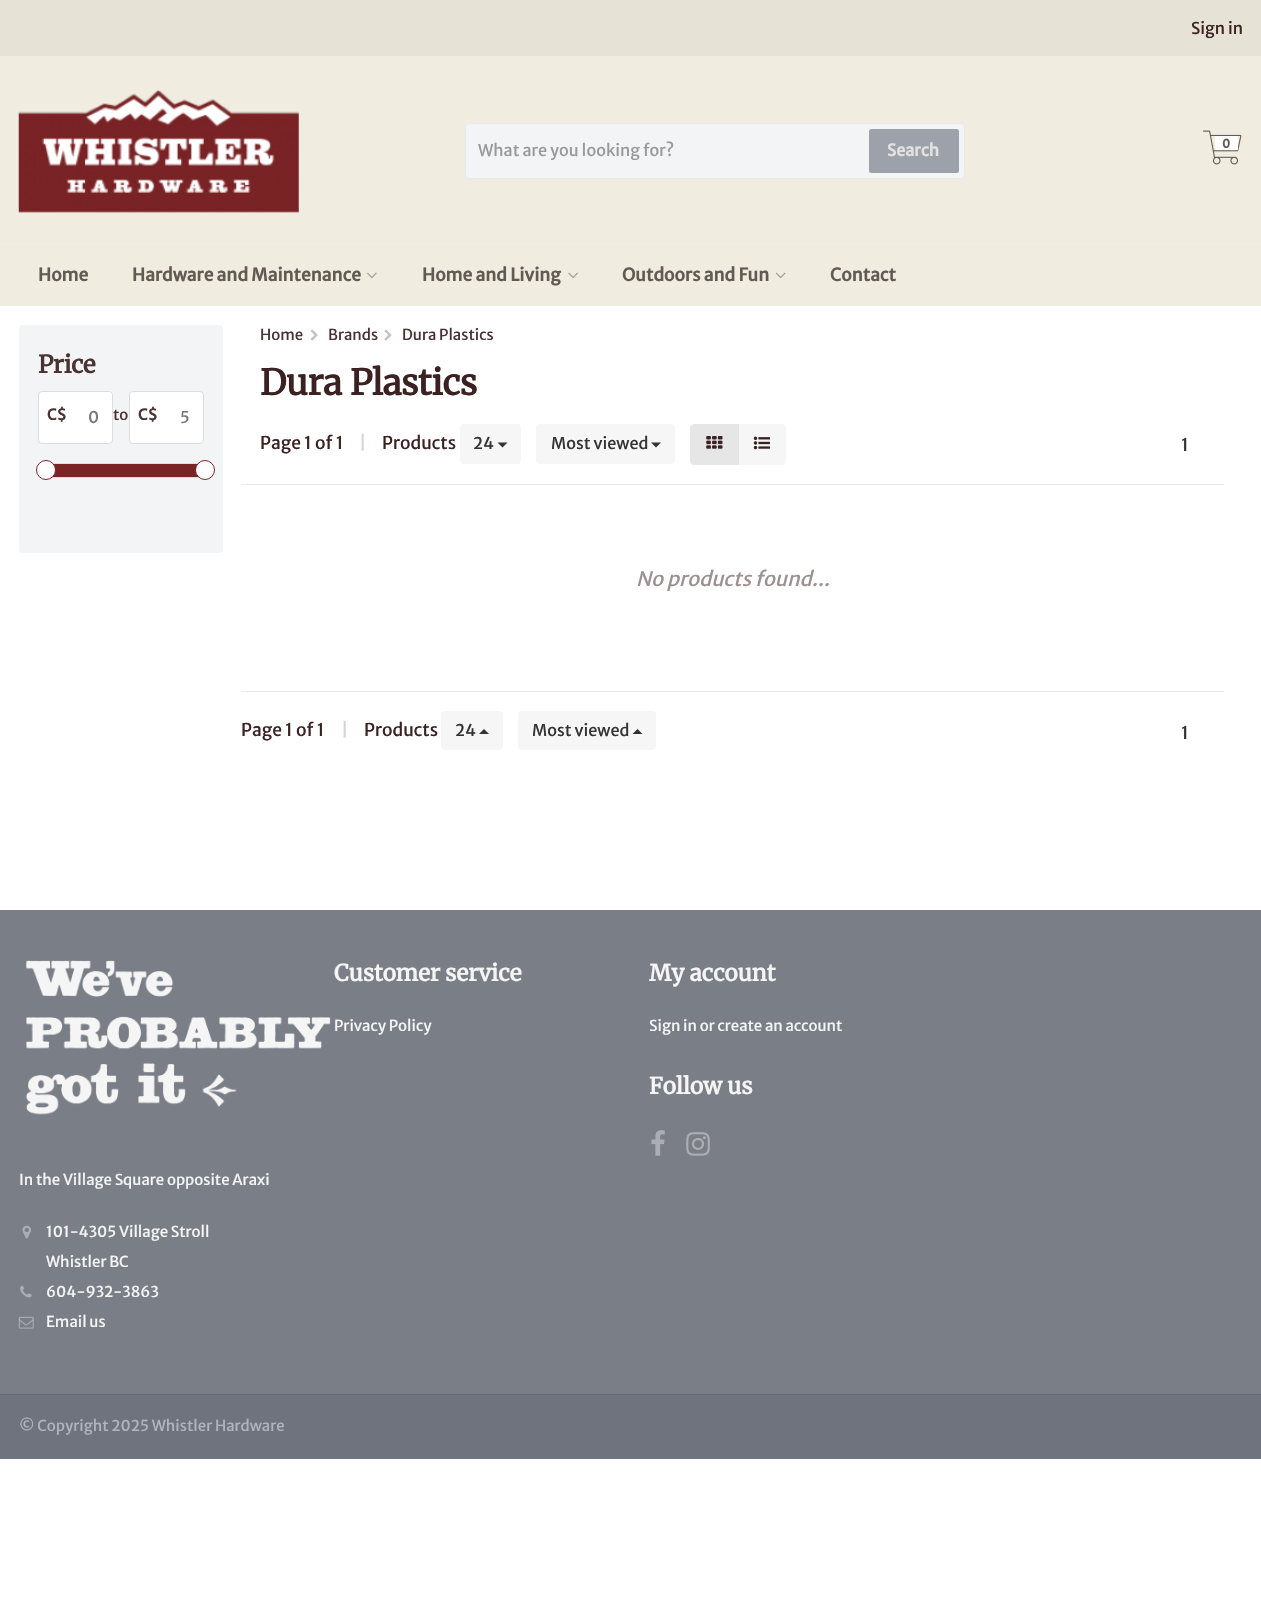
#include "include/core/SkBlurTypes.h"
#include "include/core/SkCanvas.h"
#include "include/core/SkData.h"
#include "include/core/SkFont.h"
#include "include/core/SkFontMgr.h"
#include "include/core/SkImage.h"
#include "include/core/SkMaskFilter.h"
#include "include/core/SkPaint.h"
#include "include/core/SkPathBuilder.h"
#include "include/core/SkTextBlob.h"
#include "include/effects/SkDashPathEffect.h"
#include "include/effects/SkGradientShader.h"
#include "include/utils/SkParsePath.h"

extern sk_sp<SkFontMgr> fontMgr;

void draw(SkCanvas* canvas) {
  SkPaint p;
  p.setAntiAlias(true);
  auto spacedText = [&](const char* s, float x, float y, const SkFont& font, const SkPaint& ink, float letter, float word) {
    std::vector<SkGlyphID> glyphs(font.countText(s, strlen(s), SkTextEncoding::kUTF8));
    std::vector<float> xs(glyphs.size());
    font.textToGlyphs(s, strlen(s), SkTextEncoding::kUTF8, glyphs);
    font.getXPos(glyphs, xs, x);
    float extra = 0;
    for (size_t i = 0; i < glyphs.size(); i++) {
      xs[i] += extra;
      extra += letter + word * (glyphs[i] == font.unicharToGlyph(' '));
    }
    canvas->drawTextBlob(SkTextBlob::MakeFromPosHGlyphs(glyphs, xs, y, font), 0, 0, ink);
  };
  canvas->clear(SK_ColorWHITE);
  p.setColor(SkColorSetRGB(231, 226, 214));
  canvas->drawRect(SkRect::MakeLTRB(0, 0, 1261, 56), p);
  p.setColor(SkColorSetRGB(240, 236, 224));
  canvas->drawRect(SkRect::MakeLTRB(0, 56, 1261, 306), p);
  canvas->drawImageRect(SkImages::DeferredFromEncodedData(SkData::MakeFromFileName("images/1.png")), SkRect::MakeLTRB(18, 90, 299, 213), SkSamplingOptions());
  p.setColor(SkColorSetRGB(243, 244, 245));
  canvas->drawRoundRect(SkRect::MakeLTRB(465, 123, 965, 179), 5, 5, p);
  p.setStyle(SkPaint::kStroke_Style);
  p.setStrokeWidth(1);
  p.setColor(SkColorSetARGB(128, 221, 221, 221));
  canvas->drawRoundRect(SkRect::MakeLTRB(465.5f, 123.5f, 964.5f, 178.5f), 4.5f, 4.5f, p);
  p.setStyle(SkPaint::kFill_Style);
  p.setColor(SkColorSetRGB(157, 161, 169));
  canvas->drawRoundRect(SkRect::MakeLTRB(869, 129, 959, 173), 2.5f, 2.5f, p);
  canvas->drawImageRect(SkImages::DeferredFromEncodedData(SkData::MakeFromFileName("images/2.png")), SkRect::MakeLTRB(1203, 130, 1242, 165), SkSamplingOptions());
  p.setColor(SK_ColorWHITE);
  canvas->drawRect(SkRect::MakeLTRB(1215, 136, 1238, 150), p);
  canvas->drawImageRect(SkImages::DeferredFromEncodedData(SkData::MakeFromFileName("images/3.png")), SkRect::MakeLTRB(367, 272, 377, 279), SkSamplingOptions());
  canvas->drawImageRect(SkImages::DeferredFromEncodedData(SkData::MakeFromFileName("images/4.png")), SkRect::MakeLTRB(568, 272, 578, 279), SkSamplingOptions());
  canvas->drawImageRect(SkImages::DeferredFromEncodedData(SkData::MakeFromFileName("images/5.png")), SkRect::MakeLTRB(775, 272, 786, 279), SkSamplingOptions());
  p.setColor(SkColorSetRGB(238, 238, 238));
  canvas->drawRect(SkRect::MakeLTRB(0, 244, 1261, 245), p);
  p.setColor(SkColorSetRGB(243, 244, 245));
  canvas->drawRoundRect(SkRect::MakeLTRB(19, 325, 223, 553), 4, 4, p);
  p.setColor(SK_ColorWHITE);
  canvas->drawRoundRect(SkRect::MakeLTRB(38.5f, 391.5f, 112.5f, 443.5f), 3.5f, 3.5f, p);
  p.setStyle(SkPaint::kStroke_Style);
  p.setColor(SkColorSetRGB(221, 221, 221));
  canvas->drawRoundRect(SkRect::MakeLTRB(38.5f, 391.5f, 112.5f, 443.5f), 3.5f, 3.5f, p);
  p.setStyle(SkPaint::kFill_Style);
  p.setColor(SK_ColorWHITE);
  canvas->drawRoundRect(SkRect::MakeLTRB(129.5f, 391.5f, 203.5f, 443.5f), 3.5f, 3.5f, p);
  p.setStyle(SkPaint::kStroke_Style);
  p.setColor(SkColorSetRGB(221, 221, 221));
  canvas->drawRoundRect(SkRect::MakeLTRB(129.5f, 391.5f, 203.5f, 443.5f), 3.5f, 3.5f, p);
  p.setStyle(SkPaint::kFill_Style);
  p.setColor(SkColorSetRGB(122, 36, 38));
  canvas->drawRect(SkRect::MakeLTRB(53, 464, 198, 477), p);
  p.setStyle(SkPaint::kStroke_Style);
  p.setColor(SkColorSetRGB(221, 221, 221));
  canvas->drawRect(SkRect::MakeLTRB(40.5f, 463.5f, 198.5f, 477.5f), p);
  p.setStyle(SkPaint::kFill_Style);
  p.setColor(SkColorSetRGB(254, 254, 254));
  canvas->drawCircle(46, 470, 9.5f, p);
  p.setStyle(SkPaint::kStroke_Style);
  p.setColor(SkColorSetRGB(122, 36, 38));
  canvas->drawCircle(46, 470, 9.5f, p);
  p.setStyle(SkPaint::kFill_Style);
  p.setColor(SkColorSetRGB(254, 254, 254));
  canvas->drawCircle(205, 470, 9.5f, p);
  p.setStyle(SkPaint::kStroke_Style);
  p.setColor(SkColorSetRGB(122, 36, 38));
  canvas->drawCircle(205, 470, 9.5f, p);
  canvas->drawImageRect(SkImages::DeferredFromEncodedData(SkData::MakeFromFileName("images/6.png")), SkRect::MakeLTRB(310, 329, 318, 341), SkSamplingOptions());
  canvas->drawImageRect(SkImages::DeferredFromEncodedData(SkData::MakeFromFileName("images/7.png")), SkRect::MakeLTRB(384, 329, 392, 341), SkSamplingOptions());
  p.setStyle(SkPaint::kFill_Style);
  p.setColor(SkColorSetRGB(246, 246, 246));
  canvas->drawRoundRect(SkRect::MakeLTRB(460, 424, 521, 464), 4, 4, p);
  p.setColor(SkColorSetRGB(51, 51, 51));
  canvas->drawPath(SkPathBuilder().moveTo(497.5f, 442.5f).lineTo(507.5f, 442.5f).lineTo(502.5f, 447.5f).close().detach(), p);
  p.setColor(SkColorSetRGB(246, 246, 246));
  canvas->drawRoundRect(SkRect::MakeLTRB(536, 424, 675, 464), 4, 4, p);
  p.setColor(SkColorSetRGB(51, 51, 51));
  canvas->drawPath(SkPathBuilder().moveTo(651, 442.5f).lineTo(661, 442.5f).lineTo(656, 447.5f).close().detach(), p);
  p.setColor(SkColorSetRGB(246, 246, 246));
  canvas->drawPath(SkPathBuilder().moveTo(738, 424).lineTo(782, 424).cubicTo(784, 424, 786, 426, 786, 428).lineTo(786, 461).cubicTo(786, 463, 784, 465, 782, 465).lineTo(738, 465).close().detach(), p);
  p.setColor(SkColorSetRGB(230, 230, 230));
  canvas->drawPath(SkPathBuilder().moveTo(694, 424).lineTo(739, 424).lineTo(739, 465).lineTo(694, 465).cubicTo(692, 465, 690, 463, 690, 461).lineTo(690, 428).cubicTo(690, 426, 692, 424, 694, 424).close().detach(), p);
  canvas->drawImageRect(SkImages::DeferredFromEncodedData(SkData::MakeFromFileName("images/8.png")), SkRect::MakeLTRB(706, 436, 723, 449), SkSamplingOptions());
  canvas->drawImageRect(SkImages::DeferredFromEncodedData(SkData::MakeFromFileName("images/9.png")), SkRect::MakeLTRB(753, 436, 770, 450), SkSamplingOptions());
  p.setColor(SkColorSetRGB(234, 234, 234));
  canvas->drawRect(SkRect::MakeLTRB(241, 484, 1224, 485), p);
  canvas->drawRect(SkRect::MakeLTRB(241, 691, 1224, 692), p);
  p.setColor(SkColorSetRGB(246, 246, 246));
  canvas->drawRoundRect(SkRect::MakeLTRB(441, 711, 503, 750), 4, 4, p);
  p.setColor(SkColorSetRGB(51, 51, 51));
  canvas->drawPath(SkPathBuilder().moveTo(489, 734).lineTo(479, 734).lineTo(484, 729).close().detach(), p);
  p.setColor(SkColorSetRGB(246, 246, 246));
  canvas->drawRoundRect(SkRect::MakeLTRB(518, 711, 656, 750), 4, 4, p);
  p.setColor(SkColorSetRGB(51, 51, 51));
  canvas->drawPath(SkPathBuilder().moveTo(642.5f, 734).lineTo(632.5f, 734).lineTo(637.5f, 729).close().detach(), p);
  p.setColor(SkColorSetRGB(122, 126, 135));
  canvas->drawRect(SkRect::MakeLTRB(0, 910, 1261, 1394), p);
  canvas->drawImageRect(SkImages::DeferredFromEncodedData(SkData::MakeFromFileName("images/10.png")), SkRect::MakeLTRB(651, 1130, 665, 1156), SkSamplingOptions());
  canvas->drawImageRect(SkImages::DeferredFromEncodedData(SkData::MakeFromFileName("images/11.png")), SkRect::MakeLTRB(686, 1132, 710, 1156), SkSamplingOptions());
  canvas->drawImageRect(SkImages::DeferredFromEncodedData(SkData::MakeFromFileName("images/12.png")), SkRect::MakeLTRB(26, 960, 331, 1115), SkSamplingOptions());
  canvas->drawImageRect(SkImages::DeferredFromEncodedData(SkData::MakeFromFileName("images/13.png")), SkRect::MakeLTRB(22, 1225, 31, 1239), SkSamplingOptions());
  canvas->drawImageRect(SkImages::DeferredFromEncodedData(SkData::MakeFromFileName("images/14.png")), SkRect::MakeLTRB(20, 1285, 32, 1298), SkSamplingOptions());
  canvas->drawImageRect(SkImages::DeferredFromEncodedData(SkData::MakeFromFileName("images/15.png")), SkRect::MakeLTRB(18, 1316, 34, 1329), SkSamplingOptions());
  p.setColor(SkColorSetRGB(101, 105, 114));
  canvas->drawRect(SkRect::MakeLTRB(0, 1394, 1261, 1395), p);
  p.setColor(SkColorSetRGB(110, 115, 125));
  canvas->drawRect(SkRect::MakeLTRB(0, 1395, 1261, 1459), p);
  SkFont font1(fontMgr->matchFamilyStyle("Merriweather Sans", SkFontStyle::Normal()), 16.25f);
  font1.setSubpixel(true);
  p.setColor(SkColorSetRGB(59, 33, 33));
  canvas->drawString("Sign in", 1191, 34, font1, p);
  p.setColor(SkColorSetRGB(153, 153, 153));
  canvas->drawString("What are you looking for?", 478, 156, font1, p);
  SkFont font2(fontMgr->matchFamilyStyle("Merriweather Sans", SkFontStyle::Bold()), 16.25f);
  font2.setSubpixel(true);
  p.setColor(SkColorSetRGB(226, 226, 226));
  canvas->drawString("Search", 887, 156, font2, p);
  SkFont font3(fontMgr->matchFamilyStyle("Merriweather Sans", SkFontStyle::Bold()), 12);
  font3.setSubpixel(true);
  p.setColor(SkColorSetRGB(100, 90, 85));
  canvas->drawString("0", 1222, 148, font3, p);
  SkFont font4(fontMgr->matchFamilyStyle("Merriweather Sans", SkFontStyle::Bold()), 17.5f);
  font4.setSubpixel(true);
  canvas->drawString("Home", 38, 281, font4, p);
  canvas->drawString("Hardware and Maintenance", 132, 281, font4, p);
  canvas->drawString("Home and Living", 422, 281, font4, p);
  canvas->drawString("Outdoors and Fun", 622, 281, font4, p);
  canvas->drawString("Contact", 830, 281, font4, p);
  SkFont font5(fontMgr->matchFamilyStyle("Merriweather", SkFontStyle::Bold()), 24);
  font5.setSubpixel(true);
  p.setColor(SkColorSetRGB(74, 50, 50));
  spacedText("Price", 38, 373, font5, p, -0.25f, 0);
  SkFont font6(fontMgr->matchFamilyStyle("Merriweather Sans", SkFontStyle::Bold()), 15);
  font6.setSubpixel(true);
  canvas->drawString("C$", 47, 420, font6, p);
  p.setColor(SkColorSetRGB(119, 119, 119));
  canvas->drawString("0", 88, 423, font1, p);
  SkFont font7(fontMgr->matchFamilyStyle("Merriweather Sans", SkFontStyle::Normal()), 15);
  font7.setSubpixel(true);
  p.setColor(SkColorSetRGB(74, 50, 50));
  canvas->drawString("to", 113, 420, font7, p);
  canvas->drawString("C$", 138, 420, font6, p);
  p.setColor(SkColorSetRGB(119, 119, 119));
  canvas->drawString("5", 180, 423, font1, p);
  p.setColor(SkColorSetRGB(74, 50, 50));
  canvas->drawString("Home", 260, 340, font7, p);
  canvas->drawString("Brands", 328, 340, font7, p);
  canvas->drawString("Dura Plastics", 402, 340, font7, p);
  SkFont font8(fontMgr->matchFamilyStyle("Merriweather", SkFontStyle::Bold()), 35);
  font8.setSubpixel(true);
  p.setColor(SkColorSetRGB(59, 33, 33));
  spacedText("Dura Plastics", 260, 395, font8, p, -0.25f, 0);
  SkFont font9(fontMgr->matchFamilyStyle("Merriweather Sans", SkFontStyle::Normal()), 17.5f);
  font9.setSubpixel(true);
  canvas->drawString("Page 1 of 1", 260, 449, font9, p);
  p.setColor(SkColorSetRGB(216, 211, 211));
  canvas->drawString("|", 359, 449, font9, p);
  p.setColor(SkColorSetRGB(59, 33, 33));
  canvas->drawString("Products", 382, 449, font9, p);
  p.setColor(SkColorSetRGB(51, 51, 51));
  canvas->drawString("24", 473, 449, font1, p);
  canvas->drawString("Most viewed", 551, 449, font1, p);
  canvas->drawString("1", 1181, 451, font9, p);
  SkFont font10(fontMgr->matchFamilyStyle("Merriweather Sans", SkFontStyle::Italic()), 20);
  font10.setSubpixel(true);
  p.setColor(SkColorSetRGB(157, 144, 144));
  canvas->drawString("No products found...", 636, 586, font10, p);
  p.setColor(SkColorSetRGB(59, 33, 33));
  canvas->drawString("Page 1 of 1", 241, 736, font9, p);
  p.setColor(SkColorSetRGB(216, 211, 211));
  canvas->drawString("|", 341, 736, font9, p);
  p.setColor(SkColorSetRGB(59, 33, 33));
  canvas->drawString("Products", 364, 736, font9, p);
  p.setColor(SkColorSetRGB(51, 51, 51));
  canvas->drawString("24", 455, 736, font1, p);
  canvas->drawString("Most viewed", 532, 736, font1, p);
  canvas->drawString("1", 1181, 739, font9, p);
  SkFont font11(fontMgr->matchFamilyStyle("Merriweather", SkFontStyle::Bold()), 22.5f);
  font11.setSubpixel(true);
  p.setColor(SkColorSetRGB(245, 245, 245));
  canvas->drawString("Customer service", 334, 981, font11, p);
  canvas->drawString("Privacy Policy", 334, 1031, font7, p);
  canvas->drawString("My account", 649, 981, font11, p);
  canvas->drawString("Sign in or create an account", 649, 1031, font7, p);
  canvas->drawString("Follow us", 649, 1094, font11, p);
  canvas->drawString("In the Village Square opposite Araxi", 19, 1185, font7, p);
  canvas->drawString("101-4305 Village Stroll", 46, 1237, font7, p);
  canvas->drawString("Whistler BC", 46, 1267, font7, p);
  canvas->drawString("604-932-3863", 46, 1297, font7, p);
  canvas->drawString("Email us", 46, 1327, font7, p);
  p.setColor(SkColorSetRGB(176, 180, 189));
  canvas->drawString("© Copyright 2025 Whistler Hardware", 19, 1431, font7, p);
}
